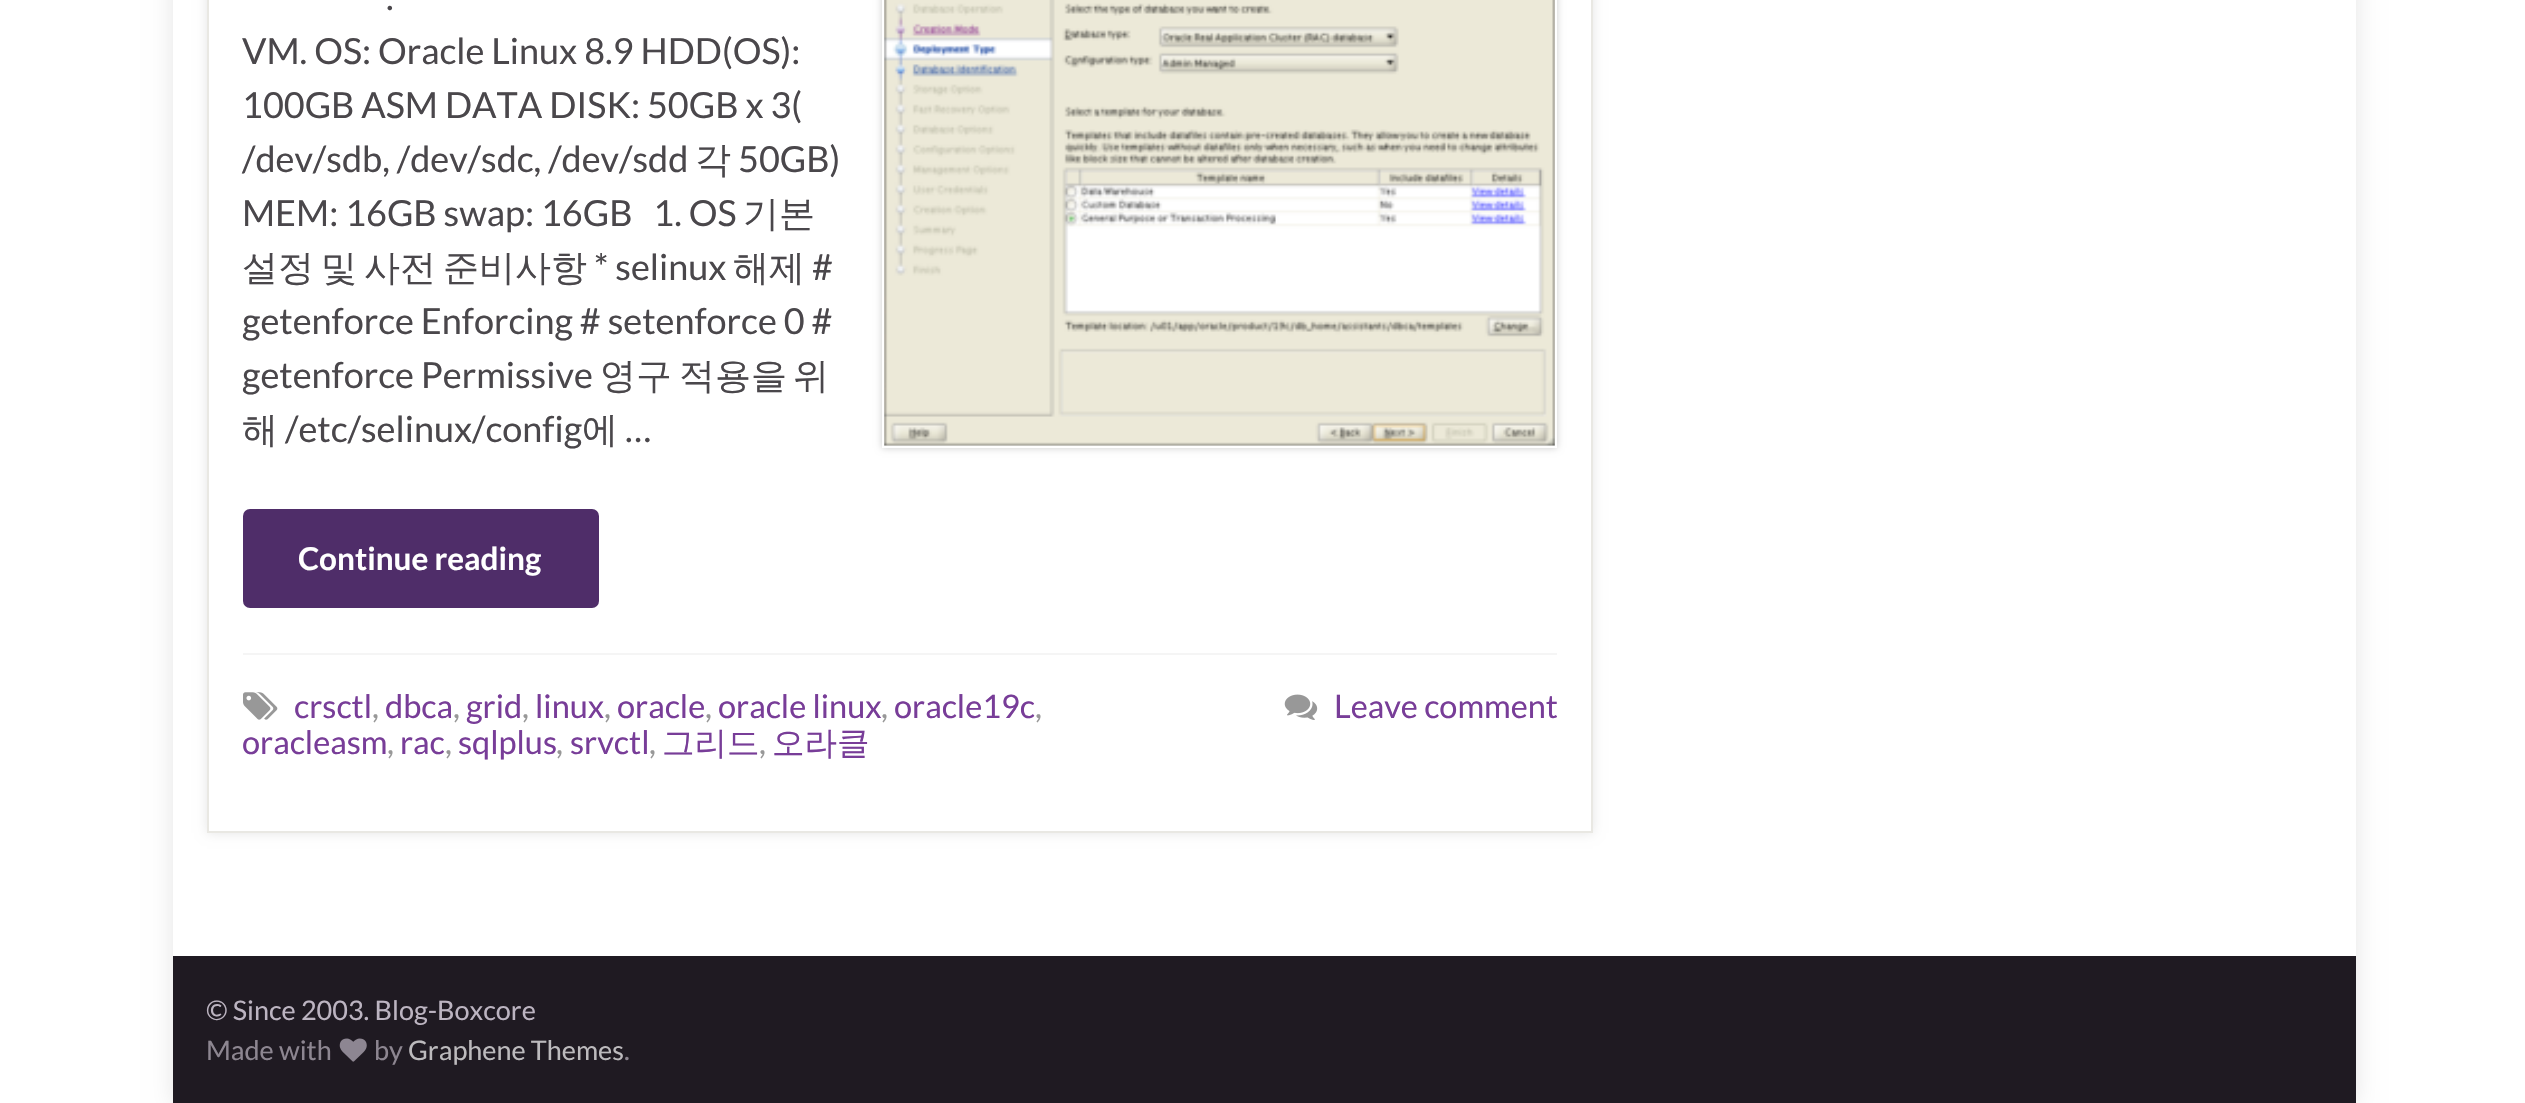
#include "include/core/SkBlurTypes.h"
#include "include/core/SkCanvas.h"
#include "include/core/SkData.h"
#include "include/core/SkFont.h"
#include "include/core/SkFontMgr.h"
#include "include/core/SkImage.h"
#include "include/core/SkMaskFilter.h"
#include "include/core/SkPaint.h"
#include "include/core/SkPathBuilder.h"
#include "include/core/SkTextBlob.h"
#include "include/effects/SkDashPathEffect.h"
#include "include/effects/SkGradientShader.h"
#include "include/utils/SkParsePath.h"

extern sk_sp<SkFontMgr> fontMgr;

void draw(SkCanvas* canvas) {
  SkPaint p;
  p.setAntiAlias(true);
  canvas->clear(SK_ColorWHITE);
  p.setColor(SkColorSetARGB(26, 0, 0, 0));
  p.setMaskFilter(SkMaskFilter::MakeBlur(kNormal_SkBlurStyle, 11));
  canvas->drawRect(SkRect::MakeLTRB(173, -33, 2356, 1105), p);
  p.setMaskFilter(nullptr);
  p.setColor(SK_ColorWHITE);
  canvas->drawRect(SkRect::MakeLTRB(173, 0, 2356, 956), p);
  p.setColor(SkColorSetARGB(26, 0, 0, 0));
  p.setMaskFilter(SkMaskFilter::MakeBlur(kNormal_SkBlurStyle, 5.5f));
  canvas->drawRect(SkRect::MakeLTRB(207, -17, 1593, 833), p);
  p.setMaskFilter(nullptr);
  p.setColor(SK_ColorWHITE);
  canvas->drawRect(SkRect::MakeLTRB(208, -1, 1592, 832), p);
  p.setStyle(SkPaint::kStroke_Style);
  p.setStrokeWidth(2);
  p.setColor(SkColorSetRGB(233, 232, 227));
  canvas->drawRect(SkRect::MakeLTRB(208, -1, 1592, 832), p);
  p.setStyle(SkPaint::kFill_Style);
  p.setColor(SkColorSetARGB(51, 0, 0, 0));
  p.setMaskFilter(SkMaskFilter::MakeBlur(kNormal_SkBlurStyle, 3.5f));
  canvas->drawRect(SkRect::MakeLTRB(882, -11, 1557, 448), p);
  p.setMaskFilter(nullptr);
  p.setStyle(SkPaint::kStroke_Style);
  p.setColor(SK_ColorWHITE);
  canvas->drawRect(SkRect::MakeLTRB(883, -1, 1556, 447), p);
  canvas->drawImageRect(SkImages::DeferredFromEncodedData(SkData::MakeFromFileName("images/1.png")), SkRect::MakeLTRB(884, 0, 1555, 446), SkSamplingOptions());
  p.setStyle(SkPaint::kFill_Style);
  p.setColor(SkColorSetRGB(79, 45, 105));
  canvas->drawRoundRect(SkRect::MakeLTRB(243, 509, 599, 608), 7, 7, p);
  p.setColor(SkColorSetRGB(245, 245, 245));
  canvas->drawRect(SkRect::MakeLTRB(243, 653, 1557, 655), p);
  canvas->drawImageRect(SkImages::DeferredFromEncodedData(SkData::MakeFromFileName("images/2.png")), SkRect::MakeLTRB(243, 692, 278, 720), SkSamplingOptions());
  canvas->drawImageRect(SkImages::DeferredFromEncodedData(SkData::MakeFromFileName("images/3.png")), SkRect::MakeLTRB(1284, 694, 1318, 720), SkSamplingOptions());
  p.setColor(SkColorSetRGB(31, 26, 34));
  canvas->drawRect(SkRect::MakeLTRB(173, 956, 2356, 1103), p);
  canvas->drawImageRect(SkImages::DeferredFromEncodedData(SkData::MakeFromFileName("images/4.png")), SkRect::MakeLTRB(339, 1038, 367, 1062), SkSamplingOptions());
  SkFont font1(fontMgr->matchFamilyStyle("Lato", SkFontStyle::Normal()), 36);
  font1.setSubpixel(true);
  p.setColor(SkColorSetRGB(74, 71, 75));
  canvas->drawString(".", 386, 10, font1, p);
  canvas->drawString("VM. OS: Oracle Linux 8.9 HDD(OS):", 242, 64, font1, p);
  canvas->drawString("100GB ASM DATA DISK: 50GB x 3(", 242, 118, font1, p);
  canvas->drawString("/dev/sdb, /dev/sdc, /dev/sdd", 242, 172, font1, p);
  SkFont font2(fontMgr->matchFamilyStyle("WenQuanYi Zen Hei", SkFontStyle(500, SkFontStyle::kNormal_Width, SkFontStyle::kUpright_Slant)), 36);
  font2.setSubpixel(true);
  canvas->drawString("각", 695, 172, font2, p);
  canvas->drawString("50GB)", 738, 172, font1, p);
  canvas->drawString("MEM: 16GB swap: 16GB   1. OS", 242, 226, font1, p);
  canvas->drawString("기본", 743, 226, font2, p);
  canvas->drawString("설정", 242, 280, font2, p);
  canvas->drawString("및", 321, 280, font2, p);
  canvas->drawString("사전", 364, 280, font2, p);
  canvas->drawString("준비사항", 443, 280, font2, p);
  canvas->drawString("* selinux", 594, 280, font1, p);
  canvas->drawString("해제", 733, 280, font2, p);
  canvas->drawString("#", 812, 280, font1, p);
  canvas->drawString("getenforce Enforcing # setenforce 0 #", 242, 334, font1, p);
  canvas->drawString("getenforce Permissive", 242, 388, font1, p);
  canvas->drawString("영구", 600, 388, font2, p);
  canvas->drawString("적용을", 679, 388, font2, p);
  canvas->drawString("위", 793, 388, font2, p);
  canvas->drawString("해", 242, 442, font2, p);
  canvas->drawString("/etc/selinux/config", 285, 442, font1, p);
  canvas->drawString("에", 582, 442, font2, p);
  canvas->drawString("…", 625, 442, font1, p);
  SkFont font3(fontMgr->matchFamilyStyle("Lato", SkFontStyle::Bold()), 31.5f);
  font3.setSubpixel(true);
  p.setColor(SK_ColorWHITE);
  canvas->drawString("Continue reading", 298, 570, font3, p);
  SkFont font4(fontMgr->matchFamilyStyle("Lato", SkFontStyle::Normal()), 32.5f);
  font4.setSubpixel(true);
  p.setColor(SkColorSetRGB(120, 61, 152));
  canvas->drawString("crsctl", 294, 718, font4, p);
  p.setColor(SkColorSetRGB(152, 152, 152));
  canvas->drawString(",", 372, 718, font4, p);
  p.setColor(SkColorSetRGB(120, 61, 152));
  canvas->drawString("dbca", 385, 718, font4, p);
  p.setColor(SkColorSetRGB(152, 152, 152));
  canvas->drawString(",", 453, 718, font4, p);
  p.setColor(SkColorSetRGB(120, 61, 152));
  canvas->drawString("grid", 466, 718, font4, p);
  p.setColor(SkColorSetRGB(152, 152, 152));
  canvas->drawString(",", 522, 718, font4, p);
  p.setColor(SkColorSetRGB(120, 61, 152));
  canvas->drawString("linux", 535, 718, font4, p);
  p.setColor(SkColorSetRGB(152, 152, 152));
  canvas->drawString(",", 604, 718, font4, p);
  p.setColor(SkColorSetRGB(120, 61, 152));
  canvas->drawString("oracle", 617, 718, font4, p);
  p.setColor(SkColorSetRGB(152, 152, 152));
  canvas->drawString(",", 705, 718, font4, p);
  p.setColor(SkColorSetRGB(120, 61, 152));
  canvas->drawString("oracle linux", 718, 718, font4, p);
  p.setColor(SkColorSetRGB(152, 152, 152));
  canvas->drawString(",", 881, 718, font4, p);
  p.setColor(SkColorSetRGB(120, 61, 152));
  canvas->drawString("oracle19c", 894, 718, font4, p);
  p.setColor(SkColorSetRGB(152, 152, 152));
  canvas->drawString(",", 1035, 718, font4, p);
  p.setColor(SkColorSetRGB(120, 61, 152));
  canvas->drawString("oracleasm", 242, 754, font4, p);
  p.setColor(SkColorSetRGB(152, 152, 152));
  canvas->drawString(",", 387, 754, font4, p);
  p.setColor(SkColorSetRGB(120, 61, 152));
  canvas->drawString("rac", 400, 754, font4, p);
  p.setColor(SkColorSetRGB(152, 152, 152));
  canvas->drawString(",", 445, 754, font4, p);
  p.setColor(SkColorSetRGB(120, 61, 152));
  canvas->drawString("sqlplus", 458, 754, font4, p);
  p.setColor(SkColorSetRGB(152, 152, 152));
  canvas->drawString(",", 556, 754, font4, p);
  p.setColor(SkColorSetRGB(120, 61, 152));
  canvas->drawString("srvctl", 570, 754, font4, p);
  p.setColor(SkColorSetRGB(152, 152, 152));
  canvas->drawString(",", 649, 754, font4, p);
  SkFont font5(fontMgr->matchFamilyStyle("WenQuanYi Zen Hei", SkFontStyle(500, SkFontStyle::kNormal_Width, SkFontStyle::kUpright_Slant)), 32.5f);
  font5.setSubpixel(true);
  p.setColor(SkColorSetRGB(120, 61, 152));
  canvas->drawString("그리드", 662, 754, font5, p);
  p.setColor(SkColorSetRGB(152, 152, 152));
  canvas->drawString(",", 759, 754, font4, p);
  p.setColor(SkColorSetRGB(120, 61, 152));
  canvas->drawString("오라클", 772, 754, font5, p);
  canvas->drawString("Leave comment", 1334, 718, font4, p);
  SkFont font6(fontMgr->matchFamilyStyle("Lato", SkFontStyle::Normal()), 27);
  font6.setSubpixel(true);
  p.setColor(SkColorSetRGB(188, 180, 193));
  canvas->drawString("© Since 2003. Blog-Boxcore", 206, 1020, font6, p);
  p.setColor(SkColorSetRGB(141, 134, 145));
  canvas->drawString("Made with", 206, 1060, font6, p);
  canvas->drawString("by", 374, 1060, font6, p);
  p.setColor(SkColorSetRGB(188, 186, 189));
  canvas->drawString("Graphene Themes", 408, 1060, font6, p);
  p.setColor(SkColorSetRGB(141, 134, 145));
  canvas->drawString(".", 624, 1060, font6, p);
}
